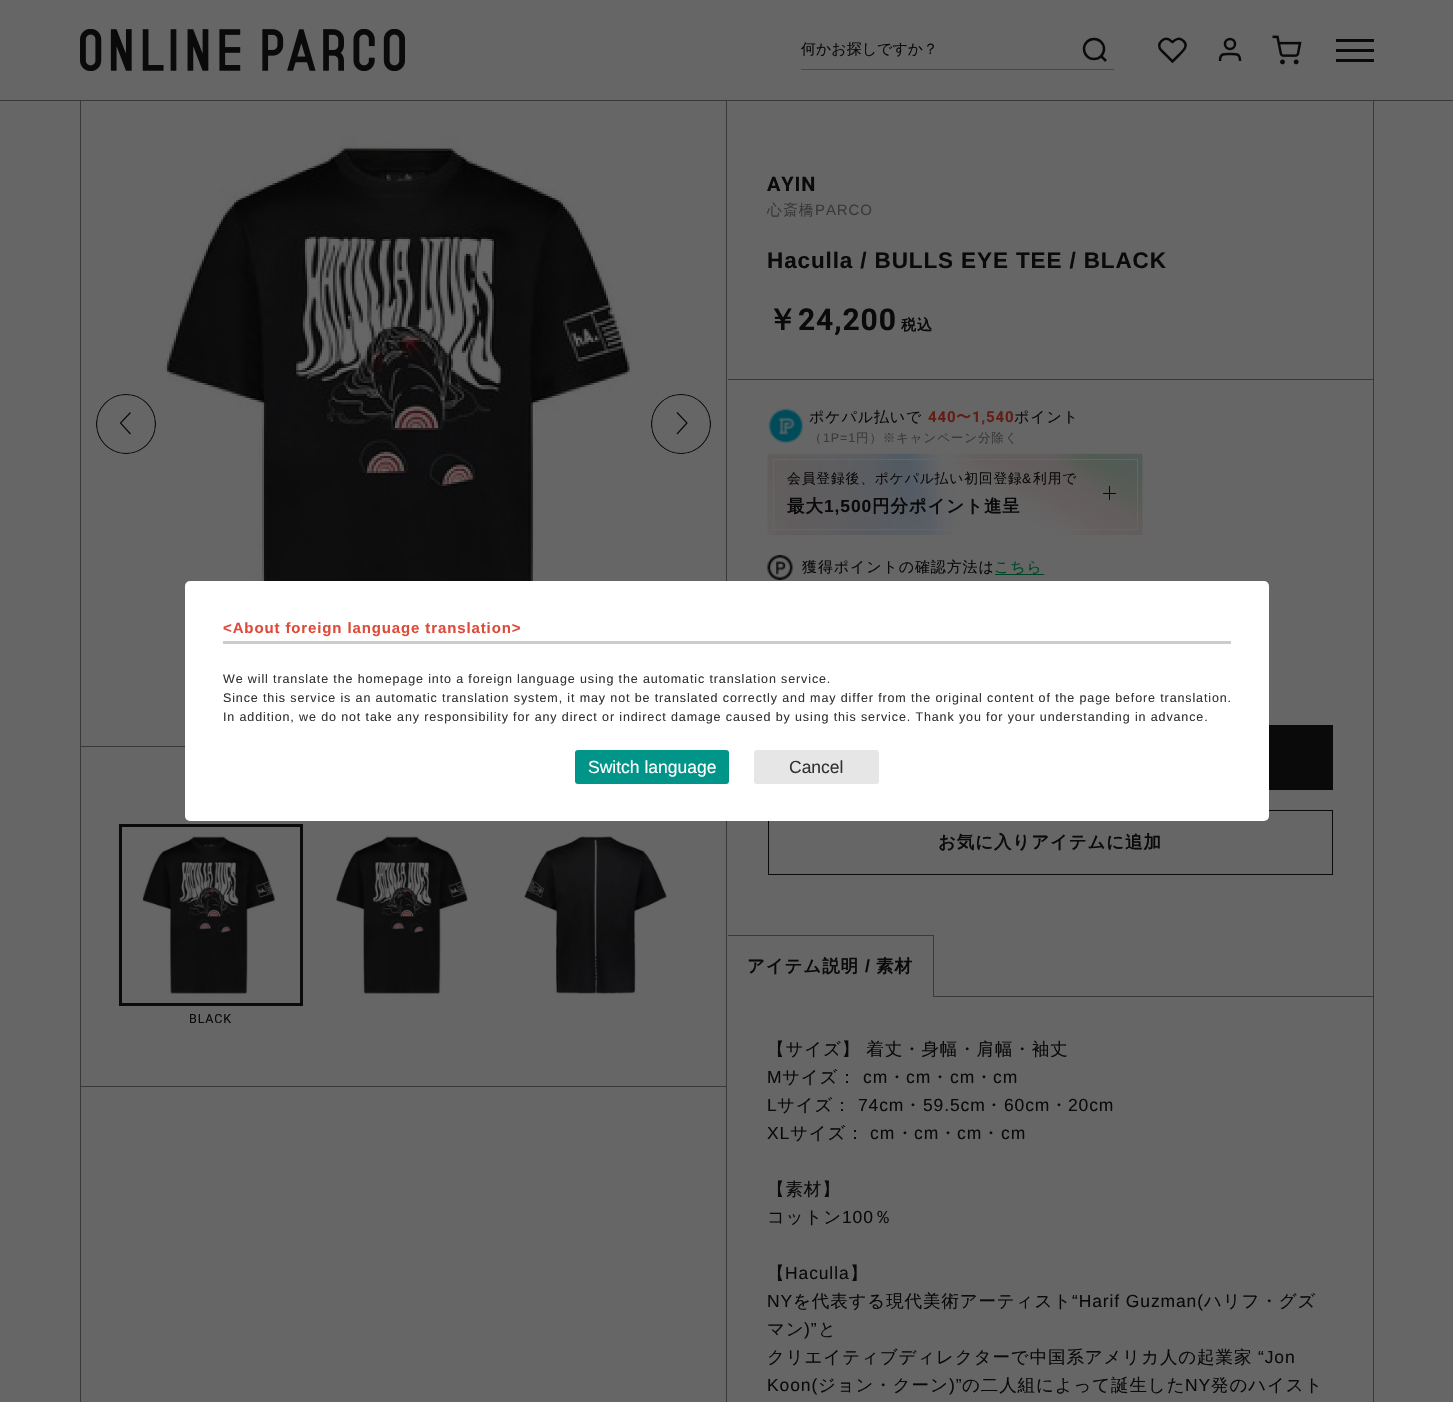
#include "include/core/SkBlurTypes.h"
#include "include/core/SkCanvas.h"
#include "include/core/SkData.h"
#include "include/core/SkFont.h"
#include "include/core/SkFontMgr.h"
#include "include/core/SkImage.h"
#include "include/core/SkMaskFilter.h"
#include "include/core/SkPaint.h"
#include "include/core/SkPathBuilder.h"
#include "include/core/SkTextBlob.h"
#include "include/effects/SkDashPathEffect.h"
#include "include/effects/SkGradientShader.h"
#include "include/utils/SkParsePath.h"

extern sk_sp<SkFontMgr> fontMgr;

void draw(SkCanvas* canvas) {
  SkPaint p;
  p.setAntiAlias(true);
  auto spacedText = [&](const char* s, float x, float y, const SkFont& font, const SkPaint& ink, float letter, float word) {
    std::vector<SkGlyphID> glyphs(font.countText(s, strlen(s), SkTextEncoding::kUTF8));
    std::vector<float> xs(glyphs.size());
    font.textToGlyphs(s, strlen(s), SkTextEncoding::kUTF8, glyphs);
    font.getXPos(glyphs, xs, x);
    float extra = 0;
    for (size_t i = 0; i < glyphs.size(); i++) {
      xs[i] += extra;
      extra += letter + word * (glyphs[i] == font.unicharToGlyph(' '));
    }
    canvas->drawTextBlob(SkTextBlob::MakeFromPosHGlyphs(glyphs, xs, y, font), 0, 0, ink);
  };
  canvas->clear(SkColorSetRGB(102, 102, 102));
  p.setColor(SkColorSetRGB(57, 57, 57));
  canvas->drawRect(SkRect::MakeLTRB(0, 100, 1453, 101), p);
  canvas->drawImageRect(SkImages::DeferredFromEncodedData(SkData::MakeFromFileName("images/1.png")), SkRect::MakeLTRB(80, 29, 405, 71), SkSamplingOptions());
  p.setColor(SkColorSetRGB(72, 72, 72));
  canvas->drawRect(SkRect::MakeLTRB(801, 69, 1114, 70), p);
  p.setStyle(SkPaint::kStroke_Style);
  p.setStrokeWidth(2.5f);
  p.setColor(SkColorSetRGB(10, 10, 10));
  canvas->drawCircle(1094, 49, 10, p);
  p.setStrokeJoin(SkPaint::kRound_Join);
  canvas->drawPath(SkPathBuilder().moveTo(1106, 61).lineTo(1101, 56).detach(), p);
  p.setStrokeJoin(SkPaint::kMiter_Join);
  canvas->drawPath(SkPathBuilder().moveTo(1183.5f, 41).cubicTo(1180, 37, 1175.5f, 39, 1172.5f, 42).lineTo(1171, 41).cubicTo(1168.5f, 38, 1164, 38, 1161.5f, 41).cubicTo(1158.5f, 43.5f, 1158.5f, 48, 1161.5f, 50.5f).lineTo(1172.5f, 61.5f).lineTo(1179, 55).cubicTo(1182.5f, 51.5f, 1189, 46, 1183.5f, 41).close().detach(), p);
  canvas->drawPath(SkPathBuilder().moveTo(1240, 61).cubicTo(1240, 53.5f, 1237, 54, 1230, 54).cubicTo(1223, 54, 1220, 53.5f, 1220, 61).detach(), p);
  canvas->drawCircle(1230, 44, 5, p);
  canvas->drawImageRect(SkImages::DeferredFromEncodedData(SkData::MakeFromFileName("images/2.png")), SkRect::MakeLTRB(1272, 35, 1302, 65), SkSamplingOptions());
  p.setStyle(SkPaint::kFill_Style);
  canvas->drawRect(SkRect::MakeLTRB(1336, 39, 1374, 42), p);
  canvas->drawRect(SkRect::MakeLTRB(1336, 49, 1374, 52), p);
  canvas->drawRect(SkRect::MakeLTRB(1336, 59, 1374, 62), p);
  p.setColor(SkColorSetRGB(57, 57, 57));
  canvas->drawRect(SkRect::MakeLTRB(726, 101, 727, 1402), p);
  canvas->drawRect(SkRect::MakeLTRB(80, 101, 81, 1402), p);
  canvas->drawImageRect(SkImages::DeferredFromEncodedData(SkData::MakeFromFileName("images/3.png")), SkRect::MakeLTRB(164, 136, 632, 703), SkSamplingOptions());
  canvas->drawRect(SkRect::MakeLTRB(81, 746, 185, 747), p);
  canvas->save();
  canvas->clipPath(SkPathBuilder().moveTo(126, 394).cubicTo(142.5f, 394, 156, 407.5f, 156, 424).cubicTo(156, 440.5f, 142.5f, 454, 126, 454).cubicTo(109.5f, 454, 96, 440.5f, 96, 424).cubicTo(96, 407.5f, 109.5f, 394, 126, 394).close().detach(), true);
  p.setStyle(SkPaint::kStroke_Style);
  p.setStrokeWidth(1.2f);
  p.setColor(SkColorSetRGB(10, 10, 10));
  canvas->drawCircle(126, 424, 29.5f, p);
  canvas->restore();
  canvas->drawPath(SkPathBuilder().moveTo(130.5f, 434).lineTo(120.5f, 423).lineTo(130.5f, 412.5f).detach(), p);
  canvas->save();
  canvas->clipPath(SkPathBuilder().moveTo(681, 394).cubicTo(697.5f, 394, 711, 407.5f, 711, 424).cubicTo(711, 440.5f, 697.5f, 454, 681, 454).cubicTo(664.5f, 454, 651, 440.5f, 651, 424).cubicTo(651, 407.5f, 664.5f, 394, 681, 394).close().detach(), true);
  canvas->drawCircle(681, 424, 29.5f, p);
  canvas->restore();
  canvas->drawPath(SkPathBuilder().moveTo(677, 434).lineTo(687, 423).lineTo(677, 412.5f).detach(), p);
  canvas->drawImageRect(SkImages::DeferredFromEncodedData(SkData::MakeFromFileName("images/4.png")), SkRect::MakeLTRB(335, 834, 468, 994), SkSamplingOptions());
  canvas->drawImageRect(SkImages::DeferredFromEncodedData(SkData::MakeFromFileName("images/5.png")), SkRect::MakeLTRB(524, 836, 667, 994), SkSamplingOptions());
  canvas->drawImageRect(SkImages::DeferredFromEncodedData(SkData::MakeFromFileName("images/6.png")), SkRect::MakeLTRB(142, 835, 276, 994), SkSamplingOptions());
  p.setStrokeWidth(3);
  canvas->drawRect(SkRect::MakeLTRB(120.5f, 825.5f, 301.5f, 1004.5f), p);
  p.setStyle(SkPaint::kFill_Style);
  p.setColor(SkColorSetRGB(57, 57, 57));
  canvas->drawRect(SkRect::MakeLTRB(81, 1086, 726, 1087), p);
  canvas->drawRect(SkRect::MakeLTRB(1373, 101, 1374, 1402), p);
  canvas->drawRect(SkRect::MakeLTRB(728, 379, 1373, 380), p);
  canvas->drawImageRect(SkImages::DeferredFromEncodedData(SkData::MakeFromFileName("images/7.png")), SkRect::MakeLTRB(768, 408, 804, 444), SkSamplingOptions());
  canvas->drawImageRect(SkImages::DeferredFromEncodedData(SkData::MakeFromFileName("images/8.png")), SkRect::MakeLTRB(767, 453, 1143, 535), SkSamplingOptions());
  p.setStyle(SkPaint::kStroke_Style);
  p.setStrokeWidth(1);
  p.setColor(SkColorSetRGB(102, 102, 102));
  canvas->drawRect(SkRect::MakeLTRB(773.5f, 459.5f, 1137.5f, 529.5f), p);
  p.setStyle(SkPaint::kFill_Style);
  p.setColor(SkColorSetRGB(10, 10, 10));
  canvas->drawRect(SkRect::MakeLTRB(1103, 493, 1116, 494), p);
  canvas->drawRect(SkRect::MakeLTRB(1109, 486, 1110, 500), p);
  canvas->drawImageRect(SkImages::DeferredFromEncodedData(SkData::MakeFromFileName("images/9.png")), SkRect::MakeLTRB(767, 555, 793, 580), SkSamplingOptions());
  p.setColor(SkColorSetRGB(0, 69, 37));
  canvas->drawRect(SkRect::MakeLTRB(995, 574, 1044, 575), p);
  p.setColor(SkColorSetRGB(10, 10, 10));
  canvas->drawRect(SkRect::MakeLTRB(1269, 725, 1333, 790), p);
  p.setStyle(SkPaint::kStroke_Style);
  canvas->drawRect(SkRect::MakeLTRB(768.5f, 810.5f, 1332.5f, 874.5f), p);
  p.setStyle(SkPaint::kFill_Style);
  p.setColor(SkColorSetRGB(57, 57, 57));
  canvas->drawRect(SkRect::MakeLTRB(933, 996, 1373, 997), p);
  canvas->drawRect(SkRect::MakeLTRB(728, 935, 934, 936), p);
  canvas->drawRect(SkRect::MakeLTRB(933, 935, 934, 996), p);
  p.setColor(SK_ColorWHITE);
  canvas->drawRoundRect(SkRect::MakeLTRB(185, 581, 1269, 821), 5, 5, p);
  p.setColor(SkColorSetRGB(204, 204, 204));
  canvas->drawRect(SkRect::MakeLTRB(223, 641, 1231, 644), p);
  p.setColor(SkColorSetRGB(0, 149, 136));
  canvas->drawRoundRect(SkRect::MakeLTRB(575, 750, 729, 784), 3, 3, p);
  p.setColor(SkColorSetRGB(230, 230, 230));
  canvas->drawRoundRect(SkRect::MakeLTRB(754, 750, 879, 784), 3, 3, p);
  SkFont font1(fontMgr->matchFamilyStyle("WenQuanYi Zen Hei", SkFontStyle(500, SkFontStyle::kNormal_Width, SkFontStyle::kUpright_Slant)), 15);
  font1.setSubpixel(true);
  p.setColor(SkColorSetRGB(10, 10, 10));
  canvas->drawString("何かお探しですか？", 801, 54, font1, p);
  SkFont font2(fontMgr->matchFamilyStyle("Roboto", SkFontStyle::Normal()), 12.5f);
  font2.setSubpixel(true);
  spacedText("BLACK", 189, 1023, font2, p, 0.88f, 0);
  SkFont font3(fontMgr->matchFamilyStyle("Roboto", SkFontStyle::Bold()), 20);
  font3.setSubpixel(true);
  spacedText("AYIN", 767, 191, font3, p, 0.88f, 0);
  p.setColor(SkColorSetRGB(57, 57, 57));
  spacedText("心斎橋", 767, 215, font1, p, 0.88f, 0);
  SkFont font4(fontMgr->matchFamilyStyle("Liberation Sans", SkFontStyle::Normal()), 15);
  font4.setSubpixel(true);
  spacedText("PARCO", 815, 215, font4, p, 0.88f, 0);
  SkFont font5(fontMgr->matchFamilyStyle("Liberation Sans", SkFontStyle::Bold()), 22.5f);
  font5.setSubpixel(true);
  p.setColor(SkColorSetRGB(10, 10, 10));
  spacedText("Haculla / BULLS EYE TEE / BLACK", 767, 268, font5, p, 0.88f, 0);
  SkFont font6(fontMgr->matchFamilyStyle("WenQuanYi Zen Hei", SkFontStyle::Bold()), 30);
  font6.setSubpixel(true);
  spacedText("￥", 767, 330, font6, p, 0.88f, 0);
  SkFont font7(fontMgr->matchFamilyStyle("Roboto", SkFontStyle::Bold()), 30);
  font7.setSubpixel(true);
  spacedText("24,200", 798, 330, font7, p, 0.88f, 0);
  SkFont font8(fontMgr->matchFamilyStyle("WenQuanYi Zen Hei", SkFontStyle::Bold()), 15);
  font8.setSubpixel(true);
  spacedText("税込", 901, 330, font8, p, 0.88f, 0);
  spacedText("ポケパル払いで", 809, 422, font1, p, 0.88f, 0);
  SkFont font9(fontMgr->matchFamilyStyle("Roboto", SkFontStyle::Bold()), 15);
  font9.setSubpixel(true);
  p.setColor(SkColorSetRGB(99, 29, 20));
  spacedText("440", 928, 422, font9, p, 0.88f, 0);
  spacedText("〜", 956, 422, font8, p, 0.88f, 0);
  spacedText("1,540", 972, 422, font9, p, 0.88f, 0);
  p.setColor(SkColorSetRGB(10, 10, 10));
  spacedText("ポイント", 1014, 422, font1, p, 0.88f, 0);
  SkFont font10(fontMgr->matchFamilyStyle("WenQuanYi Zen Hei", SkFontStyle(500, SkFontStyle::kNormal_Width, SkFontStyle::kUpright_Slant)), 12.5f);
  font10.setSubpixel(true);
  p.setColor(SkColorSetRGB(57, 57, 57));
  spacedText("（", 809, 442, font10, p, 0.88f, 0);
  SkFont font11(fontMgr->matchFamilyStyle("Liberation Sans", SkFontStyle::Normal()), 12.5f);
  font11.setSubpixel(true);
  spacedText("1P=1", 823, 442, font11, p, 0.88f, 0);
  spacedText("円）※キャンペーン分除く", 856, 442, font10, p, 0.88f, 0);
  SkFont font12(fontMgr->matchFamilyStyle("WenQuanYi Zen Hei", SkFontStyle(500, SkFontStyle::kNormal_Width, SkFontStyle::kUpright_Slant)), 13.75f);
  font12.setSubpixel(true);
  p.setColor(SkColorSetRGB(10, 10, 10));
  spacedText("会員登録後、ポケパル払い初回登録", 787, 483, font12, p, 0.88f, 0);
  SkFont font13(fontMgr->matchFamilyStyle("Liberation Sans", SkFontStyle::Normal()), 13.75f);
  font13.setSubpixel(true);
  spacedText("&", 1022, 483, font13, p, 0.88f, 0);
  spacedText("利用で", 1033, 483, font12, p, 0.88f, 0);
  SkFont font14(fontMgr->matchFamilyStyle("WenQuanYi Zen Hei", SkFontStyle::Bold()), 17.5f);
  font14.setSubpixel(true);
  spacedText("最大", 787, 512, font14, p, 0.88f, 0);
  SkFont font15(fontMgr->matchFamilyStyle("Liberation Sans", SkFontStyle::Bold()), 17.5f);
  font15.setSubpixel(true);
  spacedText("1,500", 824, 512, font15, p, 0.88f, 0);
  spacedText("円分ポイント進呈", 872, 512, font14, p, 0.88f, 0);
  spacedText("獲得ポイントの確認方法は", 802, 572, font1, p, 0.88f, 0);
  p.setColor(SkColorSetRGB(0, 69, 37));
  spacedText("こちら", 994, 572, font1, p, 0.88f, 0);
  p.setColor(SkColorSetRGB(10, 10, 10));
  spacedText("お気に入りアイテムに追加", 938, 848, font14, p, 0.88f, 0);
  spacedText("アイテム説明", 747, 972, font14, p, 0.88f, 0);
  spacedText("/", 865, 972, font15, p, 0.88f, 0);
  spacedText("素材", 876, 972, font14, p, 0.88f, 0);
  SkFont font16(fontMgr->matchFamilyStyle("WenQuanYi Zen Hei", SkFontStyle(500, SkFontStyle::kNormal_Width, SkFontStyle::kUpright_Slant)), 17.5f);
  font16.setSubpixel(true);
  spacedText("【サイズ】 着丈・身幅・肩幅・袖丈", 767, 1055, font16, p, 0.88f, 0);
  SkFont font17(fontMgr->matchFamilyStyle("Liberation Sans", SkFontStyle::Normal()), 17.5f);
  font17.setSubpixel(true);
  spacedText("M", 767, 1083, font17, p, 0.88f, 0);
  spacedText("サイズ：", 782, 1083, font16, p, 0.88f, 0);
  spacedText("cm", 863, 1083, font17, p, 0.88f, 0);
  spacedText("・", 888, 1083, font16, p, 0.88f, 0);
  spacedText("cm", 906, 1083, font17, p, 0.88f, 0);
  spacedText("・", 931, 1083, font16, p, 0.88f, 0);
  spacedText("cm", 950, 1083, font17, p, 0.88f, 0);
  spacedText("・", 975, 1083, font16, p, 0.88f, 0);
  spacedText("cm", 993, 1083, font17, p, 0.88f, 0);
  spacedText("L", 767, 1111, font17, p, 0.88f, 0);
  spacedText("サイズ：", 777, 1111, font16, p, 0.88f, 0);
  spacedText("74cm", 858, 1111, font17, p, 0.88f, 0);
  spacedText("・", 904, 1111, font16, p, 0.88f, 0);
  spacedText("59.5cm", 923, 1111, font17, p, 0.88f, 0);
  spacedText("・", 985, 1111, font16, p, 0.88f, 0);
  spacedText("60cm", 1004, 1111, font17, p, 0.88f, 0);
  spacedText("・", 1050, 1111, font16, p, 0.88f, 0);
  spacedText("20cm", 1068, 1111, font17, p, 0.88f, 0);
  spacedText("XL", 767, 1139, font17, p, 0.88f, 0);
  spacedText("サイズ：", 790, 1139, font16, p, 0.88f, 0);
  spacedText("cm", 870, 1139, font17, p, 0.88f, 0);
  spacedText("・", 896, 1139, font16, p, 0.88f, 0);
  spacedText("cm", 914, 1139, font17, p, 0.88f, 0);
  spacedText("・", 939, 1139, font16, p, 0.88f, 0);
  spacedText("cm", 957, 1139, font17, p, 0.88f, 0);
  spacedText("・", 982, 1139, font16, p, 0.88f, 0);
  spacedText("cm", 1001, 1139, font17, p, 0.88f, 0);
  spacedText("【素材】", 767, 1195, font16, p, 0.88f, 0);
  spacedText("コットン", 767, 1223, font16, p, 0.88f, 0);
  spacedText("100", 842, 1223, font17, p, 0.88f, 0);
  spacedText("％", 874, 1223, font16, p, 0.88f, 0);
  spacedText("【", 767, 1279, font16, p, 0.88f, 0);
  spacedText("Haculla", 785, 1279, font17, p, 0.88f, 0);
  spacedText("】", 850, 1279, font16, p, 0.88f, 0);
  spacedText("NY", 767, 1307, font17, p, 0.88f, 0);
  spacedText("を代表する現代美術アーティスト", 793, 1307, font16, p, 0.88f, 0);
  spacedText("“Harif Guzman(", 1072, 1307, font17, p, 0.88f, 0);
  spacedText("ハリフ・グズ", 1204, 1307, font16, p, 0.88f, 0);
  spacedText("マン", 767, 1335, font16, p, 0.88f, 0);
  spacedText(")”", 804, 1335, font17, p, 0.88f, 0);
  spacedText("と", 818, 1335, font16, p, 0.88f, 0);
  spacedText("クリエイティブディレクターで中国系アメリカ人の起業家", 767, 1363, font16, p, 0.88f, 0);
  spacedText("“Jon", 1258, 1363, font17, p, 0.88f, 0);
  spacedText("Koon(", 767, 1391, font17, p, 0.88f, 0);
  spacedText("ジョン・クーン", 818, 1391, font16, p, 0.88f, 0);
  spacedText(")”", 949, 1391, font17, p, 0.88f, 0);
  spacedText("の二人組によって誕生した", 962, 1391, font16, p, 0.88f, 0);
  spacedText("NY", 1185, 1391, font17, p, 0.88f, 0);
  spacedText("発のハイスト", 1211, 1391, font16, p, 0.88f, 0);
  SkFont font18(fontMgr->matchFamilyStyle("Liberation Sans", SkFontStyle::Bold()), 15);
  font18.setSubpixel(true);
  p.setColor(SkColorSetRGB(221, 75, 57));
  spacedText("<About foreign language translation>", 223, 633, font18, p, 0.88f, 0);
  p.setColor(SkColorSetRGB(51, 51, 51));
  spacedText("We will translate the homepage into a foreign language using the automatic translation service.", 223, 683, font11, p, 0.88f, 0);
  spacedText("Since this service is an automatic translation system, it may not be translated correctly and may differ from the original content of the page before translation.", 223, 702, font11, p, 0.88f, 0);
  spacedText("In addition, we do not take any responsibility for any direct or indirect damage caused by using this service. Thank you for your understanding in advance.", 223, 721, font11, p, 0.88f, 0);
  p.setColor(SK_ColorWHITE);
  canvas->drawString("Switch language", 588, 773, font17, p);
  p.setColor(SkColorSetRGB(51, 51, 51));
  canvas->drawString("Cancel", 789, 773, font17, p);
}
